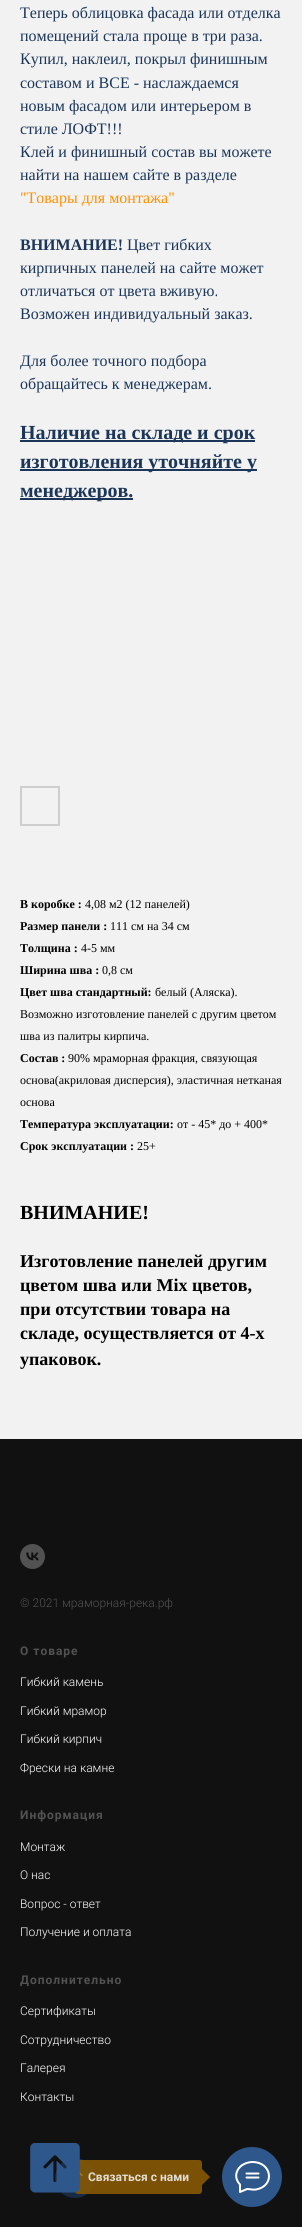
#include <cairo.h>
#include <math.h>
#include <stddef.h>

static cairo_t *ctx;

static void use_color(int r, int g, int b) {
    cairo_set_source_rgb(ctx, r / 255.0, g / 255.0, b / 255.0);
}

static void spaced_text(double x, double y, const char *s, double letter, double word) {
    cairo_move_to(ctx, x, y);
    while (*s) {
        char ch[5] = {0};
        int n = 0;
        do ch[n++] = *s++; while ((*s & 0xC0) == 0x80);
        cairo_show_text(ctx, ch);
        cairo_rel_move_to(ctx, letter + word * (*ch == ' '), 0);
    }
}

static void round_rect(double x, double y, double w, double h, double r) {
    cairo_new_sub_path(ctx);
    cairo_arc(ctx, x + w - r, y + h - r, r, 0, M_PI / 2);
    cairo_arc(ctx, x + r, y + h - r, r, M_PI / 2, M_PI);
    cairo_arc(ctx, x + r, y + r, r, M_PI, 1.5 * M_PI);
    cairo_arc(ctx, x + w - r, y + r, r, 1.5 * M_PI, 2 * M_PI);
    cairo_close_path(ctx);
}

static void picture(const char *path, double x, double y, double w, double h) {
    cairo_surface_t *image = cairo_image_surface_create_from_png(path);
    cairo_save(ctx);
    cairo_set_source_surface(ctx, image, x, y);
    cairo_rectangle(ctx, x, y, w, h);
    cairo_fill(ctx);
    cairo_restore(ctx);
    cairo_surface_destroy(image);
}

int main(void) {
    cairo_surface_t *surface = cairo_image_surface_create(CAIRO_FORMAT_RGB24, 302, 2227);
    ctx = cairo_create(surface);
    cairo_font_options_t *options = cairo_font_options_create();
    cairo_font_options_set_hint_metrics(options, CAIRO_HINT_METRICS_OFF);
    cairo_font_options_set_hint_style(options, CAIRO_HINT_STYLE_NONE);
    cairo_set_font_options(ctx, options);
    cairo_set_miter_limit(ctx, 4);
    use_color(242, 242, 242);
    cairo_paint(ctx);
    cairo_select_font_face(ctx, "Liberation Serif", CAIRO_FONT_SLANT_NORMAL, CAIRO_FONT_WEIGHT_NORMAL);
    cairo_set_font_size(ctx, 16);
    use_color(27, 54, 89);
    cairo_move_to(ctx, 20, 18);
    cairo_show_text(ctx, "Теперь облицовка фасада или отделка");
    cairo_move_to(ctx, 20, 41);
    cairo_show_text(ctx, "помещений стала проще в три раза.");
    cairo_move_to(ctx, 20, 64);
    cairo_show_text(ctx, "Купил, наклеил, покрыл финишным");
    cairo_move_to(ctx, 20, 88);
    cairo_show_text(ctx, "составом и ВСЕ - наслаждаемся");
    cairo_move_to(ctx, 20, 111);
    cairo_show_text(ctx, "новым фасадом или интерьером в");
    cairo_move_to(ctx, 20, 134);
    cairo_show_text(ctx, "стиле ЛОФТ!!!");
    cairo_move_to(ctx, 20, 157);
    cairo_show_text(ctx, "Клей и финишный состав вы можете");
    cairo_move_to(ctx, 20, 180);
    cairo_show_text(ctx, "найти на нашем сайте в разделе");
    use_color(255, 145, 0);
    cairo_move_to(ctx, 20, 203);
    cairo_show_text(ctx, "\"Товары для монтажа\"");
    cairo_select_font_face(ctx, "Liberation Serif", CAIRO_FONT_SLANT_NORMAL, CAIRO_FONT_WEIGHT_BOLD);
    use_color(27, 54, 89);
    cairo_move_to(ctx, 20, 250);
    cairo_show_text(ctx, "ВНИМАНИЕ!");
    cairo_select_font_face(ctx, "Liberation Serif", CAIRO_FONT_SLANT_NORMAL, CAIRO_FONT_WEIGHT_NORMAL);
    cairo_move_to(ctx, 127, 250);
    cairo_show_text(ctx, "Цвет гибких");
    cairo_move_to(ctx, 20, 273);
    cairo_show_text(ctx, "кирпичных панелей на сайте может");
    cairo_move_to(ctx, 20, 296);
    cairo_show_text(ctx, "отличаться от цвета вживую.");
    cairo_move_to(ctx, 20, 319);
    cairo_show_text(ctx, "Возможен индивидуальный заказ.");
    cairo_move_to(ctx, 20, 366);
    cairo_show_text(ctx, "Для более точного подбора");
    cairo_move_to(ctx, 20, 389);
    cairo_show_text(ctx, "обращайтесь к менеджерам.");
    cairo_rectangle(ctx, 20, 440, 235, 2);
    cairo_fill(ctx);
    cairo_select_font_face(ctx, "Liberation Serif", CAIRO_FONT_SLANT_NORMAL, CAIRO_FONT_WEIGHT_BOLD);
    cairo_set_font_size(ctx, 20);
    cairo_move_to(ctx, 20, 439);
    cairo_show_text(ctx, "Наличие на складе и срок");
    cairo_rectangle(ctx, 20, 469, 237, 2);
    cairo_fill(ctx);
    cairo_move_to(ctx, 20, 468);
    cairo_show_text(ctx, "изготовления уточняйте у");
    cairo_rectangle(ctx, 20, 498, 113, 2);
    cairo_fill(ctx);
    cairo_move_to(ctx, 20, 497);
    cairo_show_text(ctx, "менеджеров.");
    cairo_rectangle(ctx, 21, 787, 38, 38);
    use_color(206, 206, 206);
    cairo_stroke(ctx);
    cairo_set_font_size(ctx, 12);
    use_color(0, 0, 0);
    cairo_move_to(ctx, 20, 908);
    cairo_show_text(ctx, "В коробке :");
    cairo_select_font_face(ctx, "Liberation Serif", CAIRO_FONT_SLANT_NORMAL, CAIRO_FONT_WEIGHT_NORMAL);
    cairo_move_to(ctx, 85, 908);
    cairo_show_text(ctx, "4,08 м2 (12 панелей)");
    cairo_select_font_face(ctx, "Liberation Serif", CAIRO_FONT_SLANT_NORMAL, CAIRO_FONT_WEIGHT_BOLD);
    cairo_move_to(ctx, 20, 930);
    cairo_show_text(ctx, "Размер панели :");
    cairo_select_font_face(ctx, "Liberation Serif", CAIRO_FONT_SLANT_NORMAL, CAIRO_FONT_WEIGHT_NORMAL);
    cairo_move_to(ctx, 110, 930);
    cairo_show_text(ctx, "111 см на 34 см");
    cairo_select_font_face(ctx, "Liberation Serif", CAIRO_FONT_SLANT_NORMAL, CAIRO_FONT_WEIGHT_BOLD);
    cairo_move_to(ctx, 20, 952);
    cairo_show_text(ctx, "Толщина :");
    cairo_select_font_face(ctx, "Liberation Serif", CAIRO_FONT_SLANT_NORMAL, CAIRO_FONT_WEIGHT_NORMAL);
    cairo_move_to(ctx, 81, 952);
    cairo_show_text(ctx, "4-5 мм");
    cairo_select_font_face(ctx, "Liberation Serif", CAIRO_FONT_SLANT_NORMAL, CAIRO_FONT_WEIGHT_BOLD);
    cairo_move_to(ctx, 20, 974);
    cairo_show_text(ctx, "Ширина шва :");
    cairo_select_font_face(ctx, "Liberation Serif", CAIRO_FONT_SLANT_NORMAL, CAIRO_FONT_WEIGHT_NORMAL);
    cairo_move_to(ctx, 102, 974);
    cairo_show_text(ctx, "0,8 см");
    cairo_select_font_face(ctx, "Liberation Serif", CAIRO_FONT_SLANT_NORMAL, CAIRO_FONT_WEIGHT_BOLD);
    cairo_move_to(ctx, 20, 996);
    cairo_show_text(ctx, "Цвет шва стандартный:");
    cairo_select_font_face(ctx, "Liberation Serif", CAIRO_FONT_SLANT_NORMAL, CAIRO_FONT_WEIGHT_NORMAL);
    cairo_move_to(ctx, 155, 996);
    cairo_show_text(ctx, "белый (Аляска).");
    cairo_move_to(ctx, 20, 1018);
    cairo_show_text(ctx, "Возможно изготовление панелей с другим цветом");
    cairo_move_to(ctx, 20, 1040);
    cairo_show_text(ctx, "шва из палитры кирпича.");
    cairo_select_font_face(ctx, "Liberation Serif", CAIRO_FONT_SLANT_NORMAL, CAIRO_FONT_WEIGHT_BOLD);
    cairo_move_to(ctx, 20, 1062);
    cairo_show_text(ctx, "Состав :");
    cairo_select_font_face(ctx, "Liberation Serif", CAIRO_FONT_SLANT_NORMAL, CAIRO_FONT_WEIGHT_NORMAL);
    cairo_move_to(ctx, 68, 1062);
    cairo_show_text(ctx, "90% мраморная фракция, связующая");
    cairo_move_to(ctx, 20, 1084);
    cairo_show_text(ctx, "основа(акриловая дисперсия), эластичная нетканая");
    cairo_move_to(ctx, 20, 1106);
    cairo_show_text(ctx, "основа");
    cairo_select_font_face(ctx, "Liberation Serif", CAIRO_FONT_SLANT_NORMAL, CAIRO_FONT_WEIGHT_BOLD);
    cairo_move_to(ctx, 20, 1128);
    cairo_show_text(ctx, "Температура эксплуатации:");
    cairo_select_font_face(ctx, "Liberation Serif", CAIRO_FONT_SLANT_NORMAL, CAIRO_FONT_WEIGHT_NORMAL);
    cairo_move_to(ctx, 177, 1128);
    cairo_show_text(ctx, "от - 45* до + 400*");
    cairo_select_font_face(ctx, "Liberation Serif", CAIRO_FONT_SLANT_NORMAL, CAIRO_FONT_WEIGHT_BOLD);
    cairo_move_to(ctx, 20, 1150);
    cairo_show_text(ctx, "Срок эксплуатации :");
    cairo_select_font_face(ctx, "Liberation Serif", CAIRO_FONT_SLANT_NORMAL, CAIRO_FONT_WEIGHT_NORMAL);
    cairo_move_to(ctx, 137, 1150);
    cairo_show_text(ctx, "25+");
    cairo_select_font_face(ctx, "Liberation Serif", CAIRO_FONT_SLANT_NORMAL, CAIRO_FONT_WEIGHT_BOLD);
    cairo_set_font_size(ctx, 20);
    cairo_move_to(ctx, 20, 1219);
    cairo_show_text(ctx, "ВНИМАНИЕ!");
    cairo_set_font_size(ctx, 18);
    cairo_move_to(ctx, 20, 1267);
    cairo_show_text(ctx, "Изготовление панелей другим");
    cairo_move_to(ctx, 20, 1291);
    cairo_show_text(ctx, "цветом шва или Mix цветов,");
    cairo_move_to(ctx, 20, 1315);
    cairo_show_text(ctx, "при отсутствии товара на");
    cairo_move_to(ctx, 20, 1339);
    cairo_show_text(ctx, "складе, осуществляется от 4-х");
    cairo_move_to(ctx, 20, 1365);
    cairo_show_text(ctx, "упаковок.");
    use_color(17, 17, 17);
    cairo_rectangle(ctx, 0, 1439, 302, 788);
    cairo_fill(ctx);
    picture("img1.png", 20, 1544, 25, 25);
    cairo_select_font_face(ctx, "Roboto Light", CAIRO_FONT_SLANT_NORMAL, CAIRO_FONT_WEIGHT_NORMAL);
    cairo_set_font_size(ctx, 12);
    use_color(82, 82, 82);
    cairo_move_to(ctx, 20, 1607);
    cairo_show_text(ctx, "© 2021 мраморная-река.рф");
    cairo_select_font_face(ctx, "Roboto", CAIRO_FONT_SLANT_NORMAL, CAIRO_FONT_WEIGHT_BOLD);
    spaced_text(20, 1655, "О товаре", 1, 0);
    cairo_select_font_face(ctx, "Roboto Light", CAIRO_FONT_SLANT_NORMAL, CAIRO_FONT_WEIGHT_NORMAL);
    use_color(255, 255, 255);
    cairo_move_to(ctx, 20, 1686);
    cairo_show_text(ctx, "Гибкий камень");
    cairo_move_to(ctx, 20, 1715);
    cairo_show_text(ctx, "Гибкий мрамор");
    cairo_move_to(ctx, 20, 1743);
    cairo_show_text(ctx, "Гибкий кирпич");
    cairo_move_to(ctx, 20, 1772);
    cairo_show_text(ctx, "Фрески на камне");
    cairo_select_font_face(ctx, "Roboto", CAIRO_FONT_SLANT_NORMAL, CAIRO_FONT_WEIGHT_BOLD);
    use_color(82, 82, 82);
    spaced_text(20, 1819, "Информация", 1, 0);
    cairo_select_font_face(ctx, "Roboto Light", CAIRO_FONT_SLANT_NORMAL, CAIRO_FONT_WEIGHT_NORMAL);
    use_color(255, 255, 255);
    cairo_move_to(ctx, 20, 1851);
    cairo_show_text(ctx, "Монтаж");
    cairo_move_to(ctx, 20, 1879);
    cairo_show_text(ctx, "О нас");
    cairo_move_to(ctx, 20, 1908);
    cairo_show_text(ctx, "Вопрос - ответ");
    cairo_move_to(ctx, 20, 1936);
    cairo_show_text(ctx, "Получение и оплата");
    cairo_select_font_face(ctx, "Roboto", CAIRO_FONT_SLANT_NORMAL, CAIRO_FONT_WEIGHT_BOLD);
    use_color(82, 82, 82);
    spaced_text(20, 1984, "Дополнительно", 1, 0);
    cairo_select_font_face(ctx, "Roboto Light", CAIRO_FONT_SLANT_NORMAL, CAIRO_FONT_WEIGHT_NORMAL);
    use_color(255, 255, 255);
    cairo_move_to(ctx, 20, 2015);
    cairo_show_text(ctx, "Сертификаты");
    cairo_move_to(ctx, 20, 2044);
    cairo_show_text(ctx, "Сотрудничество");
    cairo_move_to(ctx, 20, 2072);
    cairo_show_text(ctx, "Галерея");
    cairo_move_to(ctx, 20, 2101);
    cairo_show_text(ctx, "Контакты");
    use_color(24, 43, 67);
    cairo_new_path(ctx);
    cairo_arc(ctx, 75, 2178, 20, 0, 2 * M_PI);
    cairo_fill(ctx);
    cairo_new_path(ctx);
    cairo_move_to(ctx, 68, 2175.5);
    cairo_line_to(ctx, 75, 2168.5);
    cairo_line_to(ctx, 82, 2175.5);
    use_color(242, 242, 242);
    cairo_set_line_width(ctx, 1.6);
    cairo_set_line_cap(ctx, CAIRO_LINE_CAP_ROUND);
    cairo_set_line_join(ctx, CAIRO_LINE_JOIN_ROUND);
    cairo_stroke(ctx);
    cairo_set_source_rgba(ctx, 0.549, 0.361, 0.012, 0.85);
    round_rect(75, 2160, 127, 34, 3);
    cairo_fill(ctx);
    picture("img2.png", 30, 2143, 50, 50);
    cairo_select_font_face(ctx, "Roboto", CAIRO_FONT_SLANT_NORMAL, CAIRO_FONT_WEIGHT_BOLD);
    use_color(226, 220, 209);
    cairo_move_to(ctx, 88, 2181);
    cairo_show_text(ctx, "Связаться с нами");
    use_color(122, 81, 5);
    cairo_new_path(ctx);
    cairo_move_to(ctx, 202, 2185);
    cairo_line_to(ctx, 202, 2169);
    cairo_line_to(ctx, 210, 2177);
    cairo_close_path(ctx);
    cairo_fill(ctx);
    use_color(46, 87, 140);
    cairo_arc(ctx, 252, 2177, 30, 0, 2 * M_PI);
    cairo_fill(ctx);
    cairo_new_path(ctx);
    cairo_move_to(ctx, 246.5, 2173.5);
    cairo_line_to(ctx, 258.5, 2173.5);
    cairo_move_to(ctx, 246.5, 2177.5);
    cairo_line_to(ctx, 258.5, 2177.5);
    cairo_move_to(ctx, 240, 2184.5);
    cairo_curve_to(ctx, 234.5, 2179, 235, 2171, 241, 2166);
    cairo_curve_to(ctx, 244, 2163.5, 248.5, 2162, 252.5, 2162);
    cairo_curve_to(ctx, 272, 2162, 275.5, 2186, 256, 2189.5);
    cairo_curve_to(ctx, 252, 2190, 250.5, 2189, 247, 2189);
    cairo_line_to(ctx, 240, 2192);
    cairo_line_to(ctx, 240, 2185);
    cairo_close_path(ctx);
    use_color(255, 255, 255);
    cairo_set_line_width(ctx, 2);
    cairo_stroke(ctx);
    cairo_surface_write_to_png(surface, "result.png");
    cairo_font_options_destroy(options);
    cairo_destroy(ctx);
    cairo_surface_destroy(surface);
    return 0;
}
